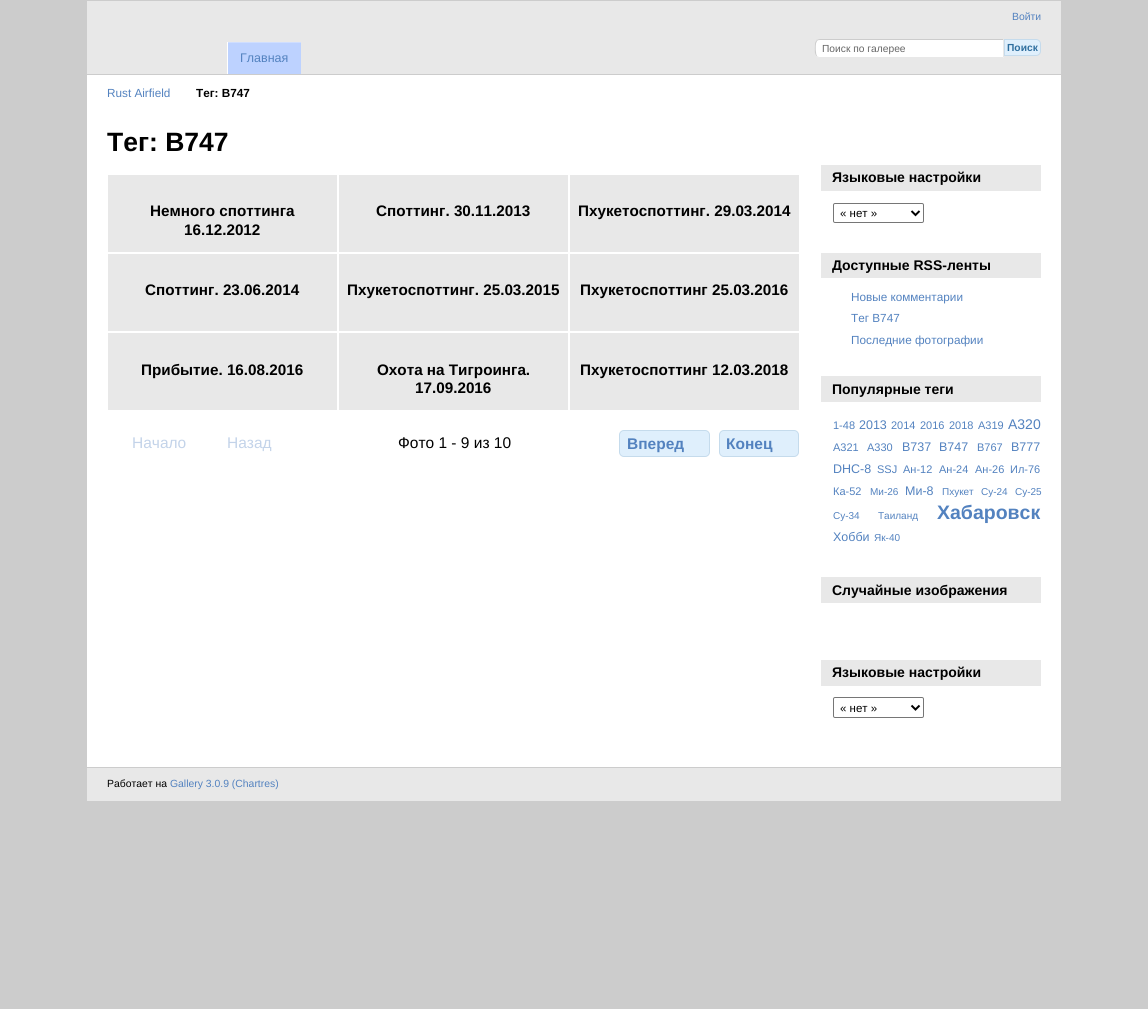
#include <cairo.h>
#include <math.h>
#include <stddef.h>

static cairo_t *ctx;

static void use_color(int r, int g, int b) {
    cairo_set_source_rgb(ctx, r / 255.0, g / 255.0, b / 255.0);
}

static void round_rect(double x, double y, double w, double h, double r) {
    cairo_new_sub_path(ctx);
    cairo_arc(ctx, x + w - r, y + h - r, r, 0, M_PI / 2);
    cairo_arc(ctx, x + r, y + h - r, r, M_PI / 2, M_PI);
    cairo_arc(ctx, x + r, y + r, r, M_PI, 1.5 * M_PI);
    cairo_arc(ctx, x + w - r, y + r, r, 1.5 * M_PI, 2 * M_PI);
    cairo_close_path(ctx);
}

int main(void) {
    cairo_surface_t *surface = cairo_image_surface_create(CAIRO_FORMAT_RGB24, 1148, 1009);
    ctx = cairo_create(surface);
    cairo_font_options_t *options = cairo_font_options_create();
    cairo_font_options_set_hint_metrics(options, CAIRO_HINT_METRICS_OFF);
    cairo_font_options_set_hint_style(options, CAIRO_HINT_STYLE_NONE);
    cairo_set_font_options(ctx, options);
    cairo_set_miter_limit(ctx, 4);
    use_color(204, 204, 204);
    cairo_paint(ctx);
    use_color(255, 255, 255);
    cairo_rectangle(ctx, 87, 75, 974, 692);
    cairo_fill(ctx);
    use_color(232, 232, 232);
    cairo_rectangle(ctx, 87, 1, 974, 73);
    cairo_fill(ctx);
    cairo_select_font_face(ctx, "Liberation Sans", CAIRO_FONT_SLANT_NORMAL, CAIRO_FONT_WEIGHT_NORMAL);
    cairo_set_font_size(ctx, 10.4);
    use_color(83, 130, 191);
    cairo_move_to(ctx, 1012, 20);
    cairo_show_text(ctx, "Войти");
    use_color(255, 255, 255);
    cairo_new_path(ctx);
    cairo_move_to(ctx, 820, 39);
    cairo_line_to(ctx, 1004, 39);
    cairo_line_to(ctx, 1004, 58);
    cairo_line_to(ctx, 820, 58);
    cairo_curve_to(ctx, 817, 58, 815, 56, 815, 53);
    cairo_line_to(ctx, 815, 44);
    cairo_curve_to(ctx, 815, 41, 817, 39, 820, 39);
    cairo_close_path(ctx);
    cairo_fill(ctx);
    use_color(204, 204, 204);
    cairo_new_path(ctx);
    cairo_move_to(ctx, 820, 39);
    cairo_curve_to(ctx, 818, 39, 817, 40, 816, 40);
    cairo_line_to(ctx, 817, 41);
    cairo_curve_to(ctx, 818, 40, 819, 40, 820, 40);
    cairo_line_to(ctx, 1003, 40);
    cairo_line_to(ctx, 1004, 39);
    cairo_close_path(ctx);
    cairo_fill(ctx);
    use_color(232, 232, 232);
    cairo_new_path(ctx);
    cairo_move_to(ctx, 1004, 39);
    cairo_line_to(ctx, 1003, 40);
    cairo_line_to(ctx, 1003, 57);
    cairo_line_to(ctx, 1004, 58);
    cairo_close_path(ctx);
    cairo_fill(ctx);
    cairo_new_path(ctx);
    cairo_move_to(ctx, 1004, 58);
    cairo_line_to(ctx, 1003, 57);
    cairo_line_to(ctx, 819, 57);
    cairo_line_to(ctx, 817, 56);
    cairo_line_to(ctx, 816, 57);
    cairo_curve_to(ctx, 817, 58, 818, 58, 820, 58);
    cairo_close_path(ctx);
    cairo_fill(ctx);
    use_color(204, 204, 204);
    cairo_new_path(ctx);
    cairo_move_to(ctx, 815, 44);
    cairo_curve_to(ctx, 815, 47, 814, 54.5, 816.5, 56.5);
    cairo_line_to(ctx, 817, 56);
    cairo_curve_to(ctx, 815.5, 53.5, 815.5, 46, 816, 43.5);
    cairo_line_to(ctx, 817, 41);
    cairo_line_to(ctx, 816.5, 40.5);
    cairo_curve_to(ctx, 815.5, 41, 815, 42.5, 815, 44);
    cairo_close_path(ctx);
    cairo_fill(ctx);
    cairo_set_font_size(ctx, 10.25);
    use_color(102, 102, 102);
    cairo_move_to(ctx, 822, 52);
    cairo_show_text(ctx, "Поиск по галерее");
    use_color(223, 239, 252);
    cairo_new_path(ctx);
    cairo_move_to(ctx, 1004.5, 39.5);
    cairo_line_to(ctx, 1036, 39.5);
    cairo_curve_to(ctx, 1038.5, 39.5, 1040.5, 41.5, 1040.5, 44);
    cairo_line_to(ctx, 1040.5, 51);
    cairo_curve_to(ctx, 1040.5, 53.5, 1038.5, 55.5, 1036, 55.5);
    cairo_line_to(ctx, 1004.5, 55.5);
    cairo_close_path(ctx);
    cairo_fill_preserve(ctx);
    use_color(197, 219, 236);
    cairo_set_line_width(ctx, 1);
    cairo_stroke(ctx);
    cairo_select_font_face(ctx, "Liberation Sans", CAIRO_FONT_SLANT_NORMAL, CAIRO_FONT_WEIGHT_BOLD);
    use_color(46, 110, 158);
    cairo_move_to(ctx, 1007, 51);
    cairo_show_text(ctx, "Поиск");
    use_color(189, 210, 255);
    cairo_rectangle(ctx, 228, 43, 73, 31);
    cairo_fill(ctx);
    use_color(207, 222, 255);
    cairo_rectangle(ctx, 227, 42, 74, 1);
    cairo_fill(ctx);
    use_color(255, 255, 255);
    cairo_rectangle(ctx, 227, 42, 1, 32);
    cairo_fill(ctx);
    cairo_select_font_face(ctx, "Liberation Sans", CAIRO_FONT_SLANT_NORMAL, CAIRO_FONT_WEIGHT_NORMAL);
    cairo_set_font_size(ctx, 12.5);
    use_color(83, 130, 191);
    cairo_move_to(ctx, 240, 62);
    cairo_show_text(ctx, "Главная");
    cairo_set_font_size(ctx, 11.75);
    cairo_move_to(ctx, 107, 97);
    cairo_show_text(ctx, "Rust Airfield");
    cairo_select_font_face(ctx, "Liberation Sans", CAIRO_FONT_SLANT_NORMAL, CAIRO_FONT_WEIGHT_BOLD);
    use_color(0, 0, 0);
    cairo_move_to(ctx, 196, 97);
    cairo_show_text(ctx, "Тег: B747");
    cairo_set_font_size(ctx, 26.5);
    cairo_move_to(ctx, 107, 151);
    cairo_show_text(ctx, "Тег: B747");
    use_color(232, 232, 232);
    cairo_rectangle(ctx, 108, 175, 229, 77);
    cairo_fill(ctx);
    cairo_set_font_size(ctx, 15.25);
    use_color(0, 0, 0);
    cairo_move_to(ctx, 150, 216);
    cairo_show_text(ctx, "Немного споттинга");
    cairo_move_to(ctx, 184, 235);
    cairo_show_text(ctx, "16.12.2012");
    use_color(232, 232, 232);
    cairo_rectangle(ctx, 339, 175, 229, 77);
    cairo_fill(ctx);
    use_color(0, 0, 0);
    cairo_move_to(ctx, 376, 216);
    cairo_show_text(ctx, "Споттинг. 30.11.2013");
    use_color(232, 232, 232);
    cairo_rectangle(ctx, 570, 175, 229, 77);
    cairo_fill(ctx);
    use_color(0, 0, 0);
    cairo_move_to(ctx, 578, 216);
    cairo_show_text(ctx, "Пхукетоспоттинг. 29.03.2014");
    use_color(232, 232, 232);
    cairo_rectangle(ctx, 108, 254, 229, 77);
    cairo_fill(ctx);
    use_color(0, 0, 0);
    cairo_move_to(ctx, 145, 295);
    cairo_show_text(ctx, "Споттинг. 23.06.2014");
    use_color(232, 232, 232);
    cairo_rectangle(ctx, 339, 254, 229, 77);
    cairo_fill(ctx);
    use_color(0, 0, 0);
    cairo_move_to(ctx, 347, 295);
    cairo_show_text(ctx, "Пхукетоспоттинг. 25.03.2015");
    use_color(232, 232, 232);
    cairo_rectangle(ctx, 570, 254, 229, 77);
    cairo_fill(ctx);
    use_color(0, 0, 0);
    cairo_move_to(ctx, 580, 295);
    cairo_show_text(ctx, "Пхукетоспоттинг 25.03.2016");
    use_color(232, 232, 232);
    cairo_rectangle(ctx, 108, 333, 229, 77);
    cairo_fill(ctx);
    use_color(0, 0, 0);
    cairo_move_to(ctx, 141, 375);
    cairo_show_text(ctx, "Прибытие. 16.08.2016");
    use_color(232, 232, 232);
    cairo_rectangle(ctx, 339, 333, 229, 77);
    cairo_fill(ctx);
    use_color(0, 0, 0);
    cairo_move_to(ctx, 377, 375);
    cairo_show_text(ctx, "Охота на Тигроинга.");
    cairo_move_to(ctx, 415, 393);
    cairo_show_text(ctx, "17.09.2016");
    use_color(232, 232, 232);
    cairo_rectangle(ctx, 570, 333, 229, 77);
    cairo_fill(ctx);
    use_color(0, 0, 0);
    cairo_move_to(ctx, 580, 375);
    cairo_show_text(ctx, "Пхукетоспоттинг 12.03.2018");
    cairo_select_font_face(ctx, "Liberation Sans", CAIRO_FONT_SLANT_NORMAL, CAIRO_FONT_WEIGHT_NORMAL);
    cairo_set_font_size(ctx, 15.5);
    use_color(195, 211, 233);
    cairo_move_to(ctx, 132, 448);
    cairo_show_text(ctx, "Начало");
    cairo_move_to(ctx, 227, 448);
    cairo_show_text(ctx, "Назад");
    use_color(0, 0, 0);
    cairo_move_to(ctx, 398, 448);
    cairo_show_text(ctx, "Фото 1 - 9 из 10");
    use_color(223, 239, 252);
    round_rect(619.5, 430.5, 90, 26, 4.5);
    cairo_fill_preserve(ctx);
    use_color(197, 219, 236);
    cairo_stroke(ctx);
    cairo_select_font_face(ctx, "Liberation Sans", CAIRO_FONT_SLANT_NORMAL, CAIRO_FONT_WEIGHT_BOLD);
    use_color(83, 130, 191);
    cairo_move_to(ctx, 627, 449);
    cairo_show_text(ctx, "Вперед");
    use_color(223, 239, 252);
    round_rect(719.5, 430.5, 79, 26, 4.5);
    cairo_fill_preserve(ctx);
    use_color(197, 219, 236);
    cairo_stroke(ctx);
    use_color(83, 130, 191);
    cairo_move_to(ctx, 726, 449);
    cairo_show_text(ctx, "Конец");
    use_color(232, 232, 232);
    cairo_rectangle(ctx, 821, 165, 220, 26);
    cairo_fill(ctx);
    cairo_set_font_size(ctx, 14);
    use_color(0, 0, 0);
    cairo_move_to(ctx, 832, 182);
    cairo_show_text(ctx, "Языковые настройки");
    round_rect(833.5, 203.5, 90, 19, 1.5);
    use_color(118, 118, 118);
    cairo_stroke(ctx);
    cairo_new_path(ctx);
    cairo_move_to(ctx, 911.5, 211);
    cairo_line_to(ctx, 915.5, 215);
    cairo_line_to(ctx, 919.5, 211);
    use_color(0, 0, 0);
    cairo_set_line_width(ctx, 2);
    cairo_stroke(ctx);
    cairo_select_font_face(ctx, "Liberation Sans", CAIRO_FONT_SLANT_NORMAL, CAIRO_FONT_WEIGHT_NORMAL);
    cairo_set_font_size(ctx, 11.5);
    cairo_move_to(ctx, 840, 217);
    cairo_show_text(ctx, "« нет »");
    use_color(232, 232, 232);
    cairo_rectangle(ctx, 821, 253, 220, 25);
    cairo_fill(ctx);
    cairo_select_font_face(ctx, "Liberation Sans", CAIRO_FONT_SLANT_NORMAL, CAIRO_FONT_WEIGHT_BOLD);
    cairo_set_font_size(ctx, 14);
    use_color(0, 0, 0);
    cairo_move_to(ctx, 832, 270);
    cairo_show_text(ctx, "Доступные RSS-ленты");
    cairo_select_font_face(ctx, "Liberation Sans", CAIRO_FONT_SLANT_NORMAL, CAIRO_FONT_WEIGHT_NORMAL);
    cairo_set_font_size(ctx, 11.75);
    use_color(83, 130, 191);
    cairo_move_to(ctx, 851, 301);
    cairo_show_text(ctx, "Новые комментарии");
    cairo_move_to(ctx, 851, 322);
    cairo_show_text(ctx, "Тег B747");
    cairo_move_to(ctx, 851, 344);
    cairo_show_text(ctx, "Последние фотографии");
    use_color(232, 232, 232);
    cairo_rectangle(ctx, 821, 376, 220, 26);
    cairo_fill(ctx);
    cairo_select_font_face(ctx, "Liberation Sans", CAIRO_FONT_SLANT_NORMAL, CAIRO_FONT_WEIGHT_BOLD);
    cairo_set_font_size(ctx, 14);
    use_color(0, 0, 0);
    cairo_move_to(ctx, 832, 394);
    cairo_show_text(ctx, "Популярные теги");
    cairo_select_font_face(ctx, "Liberation Sans", CAIRO_FONT_SLANT_NORMAL, CAIRO_FONT_WEIGHT_NORMAL);
    cairo_set_font_size(ctx, 11);
    use_color(83, 130, 191);
    cairo_move_to(ctx, 833, 429);
    cairo_show_text(ctx, "1-48");
    cairo_set_font_size(ctx, 12.5);
    cairo_move_to(ctx, 859, 429);
    cairo_show_text(ctx, "2013");
    cairo_set_font_size(ctx, 11);
    cairo_move_to(ctx, 891, 429);
    cairo_show_text(ctx, "2014");
    cairo_move_to(ctx, 920, 429);
    cairo_show_text(ctx, "2016");
    cairo_move_to(ctx, 949, 429);
    cairo_show_text(ctx, "2018");
    cairo_move_to(ctx, 978, 429);
    cairo_show_text(ctx, "A319");
    cairo_set_font_size(ctx, 14);
    cairo_move_to(ctx, 1008, 429);
    cairo_show_text(ctx, "A320");
    cairo_set_font_size(ctx, 11);
    cairo_move_to(ctx, 833, 451);
    cairo_show_text(ctx, "A321");
    cairo_move_to(ctx, 867, 451);
    cairo_show_text(ctx, "A330");
    cairo_set_font_size(ctx, 12.5);
    cairo_move_to(ctx, 902, 451);
    cairo_show_text(ctx, "B737");
    cairo_move_to(ctx, 939, 451);
    cairo_show_text(ctx, "B747");
    cairo_set_font_size(ctx, 11);
    cairo_move_to(ctx, 977, 451);
    cairo_show_text(ctx, "B767");
    cairo_set_font_size(ctx, 12.5);
    cairo_move_to(ctx, 1011, 451);
    cairo_show_text(ctx, "B777");
    cairo_move_to(ctx, 833, 473);
    cairo_show_text(ctx, "DHC-8");
    cairo_set_font_size(ctx, 11);
    cairo_move_to(ctx, 877, 473);
    cairo_show_text(ctx, "SSJ");
    cairo_move_to(ctx, 903, 473);
    cairo_show_text(ctx, "Ан-12");
    cairo_move_to(ctx, 939, 473);
    cairo_show_text(ctx, "Ан-24");
    cairo_move_to(ctx, 975, 473);
    cairo_show_text(ctx, "Ан-26");
    cairo_move_to(ctx, 1010, 473);
    cairo_show_text(ctx, "Ил-76");
    cairo_move_to(ctx, 833, 495);
    cairo_show_text(ctx, "Ка-52");
    cairo_set_font_size(ctx, 10);
    cairo_move_to(ctx, 870, 495);
    cairo_show_text(ctx, "Ми-26");
    cairo_set_font_size(ctx, 12.5);
    cairo_move_to(ctx, 905, 495);
    cairo_show_text(ctx, "Ми-8");
    cairo_set_font_size(ctx, 10);
    cairo_move_to(ctx, 942, 495);
    cairo_show_text(ctx, "Пхукет");
    cairo_move_to(ctx, 981, 495);
    cairo_show_text(ctx, "Су-24");
    cairo_move_to(ctx, 1015, 495);
    cairo_show_text(ctx, "Су-25");
    cairo_move_to(ctx, 833, 519);
    cairo_show_text(ctx, "Су-34");
    cairo_move_to(ctx, 878, 519);
    cairo_show_text(ctx, "Таиланд");
    cairo_select_font_face(ctx, "Liberation Sans", CAIRO_FONT_SLANT_NORMAL, CAIRO_FONT_WEIGHT_BOLD);
    cairo_set_font_size(ctx, 19.5);
    cairo_move_to(ctx, 937, 519);
    cairo_show_text(ctx, "Хабаровск");
    cairo_select_font_face(ctx, "Liberation Sans", CAIRO_FONT_SLANT_NORMAL, CAIRO_FONT_WEIGHT_NORMAL);
    cairo_set_font_size(ctx, 12.5);
    cairo_move_to(ctx, 833, 541);
    cairo_show_text(ctx, "Хобби");
    cairo_set_font_size(ctx, 10);
    cairo_move_to(ctx, 874, 541);
    cairo_show_text(ctx, "Як-40");
    use_color(232, 232, 232);
    cairo_rectangle(ctx, 821, 577, 220, 26);
    cairo_fill(ctx);
    cairo_select_font_face(ctx, "Liberation Sans", CAIRO_FONT_SLANT_NORMAL, CAIRO_FONT_WEIGHT_BOLD);
    cairo_set_font_size(ctx, 14);
    use_color(0, 0, 0);
    cairo_move_to(ctx, 832, 595);
    cairo_show_text(ctx, "Случайные изображения");
    use_color(232, 232, 232);
    cairo_rectangle(ctx, 821, 660, 220, 26);
    cairo_fill(ctx);
    use_color(0, 0, 0);
    cairo_move_to(ctx, 832, 677);
    cairo_show_text(ctx, "Языковые настройки");
    round_rect(833.5, 697.5, 90, 20, 1.5);
    use_color(118, 118, 118);
    cairo_set_line_width(ctx, 1);
    cairo_stroke(ctx);
    cairo_new_path(ctx);
    cairo_move_to(ctx, 911.5, 705.5);
    cairo_line_to(ctx, 915.5, 709.5);
    cairo_line_to(ctx, 919.5, 705.5);
    use_color(0, 0, 0);
    cairo_set_line_width(ctx, 2);
    cairo_stroke(ctx);
    cairo_select_font_face(ctx, "Liberation Sans", CAIRO_FONT_SLANT_NORMAL, CAIRO_FONT_WEIGHT_NORMAL);
    cairo_set_font_size(ctx, 11.5);
    cairo_move_to(ctx, 840, 712);
    cairo_show_text(ctx, "« нет »");
    use_color(232, 232, 232);
    cairo_rectangle(ctx, 87, 768, 974, 33);
    cairo_fill(ctx);
    cairo_set_font_size(ctx, 10.4);
    use_color(0, 0, 0);
    cairo_move_to(ctx, 107, 787);
    cairo_show_text(ctx, "Работает на");
    use_color(83, 130, 191);
    cairo_move_to(ctx, 170, 787);
    cairo_show_text(ctx, "Gallery 3.0.9 (Chartres)");
    cairo_surface_write_to_png(surface, "result.png");
    cairo_font_options_destroy(options);
    cairo_destroy(ctx);
    cairo_surface_destroy(surface);
    return 0;
}
